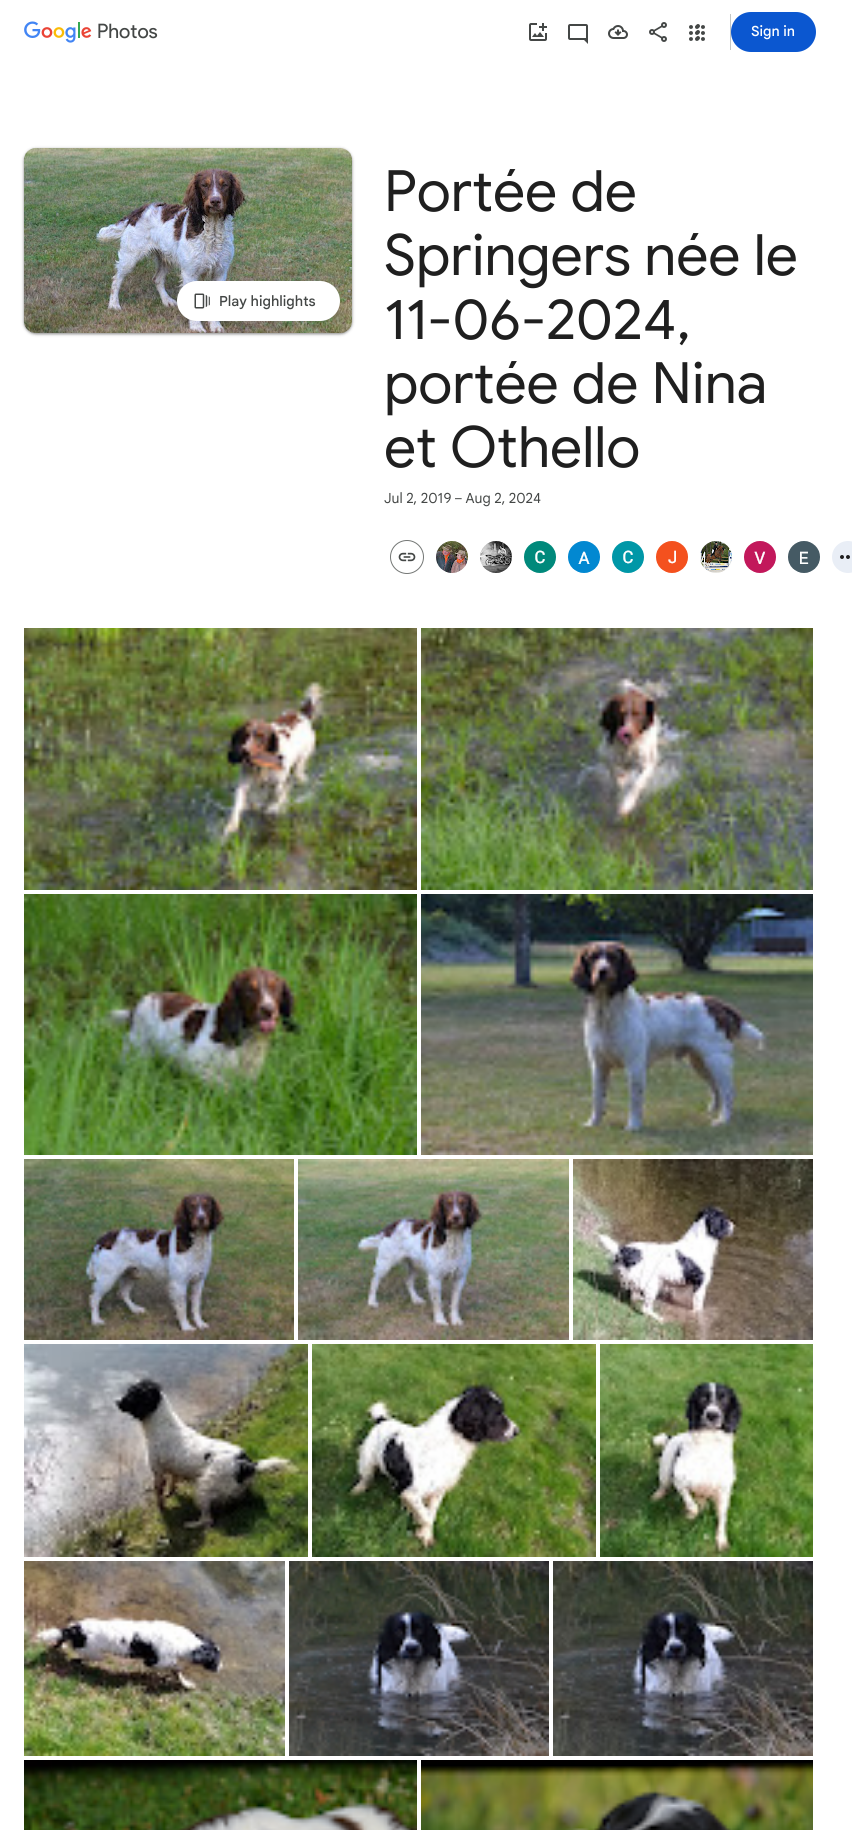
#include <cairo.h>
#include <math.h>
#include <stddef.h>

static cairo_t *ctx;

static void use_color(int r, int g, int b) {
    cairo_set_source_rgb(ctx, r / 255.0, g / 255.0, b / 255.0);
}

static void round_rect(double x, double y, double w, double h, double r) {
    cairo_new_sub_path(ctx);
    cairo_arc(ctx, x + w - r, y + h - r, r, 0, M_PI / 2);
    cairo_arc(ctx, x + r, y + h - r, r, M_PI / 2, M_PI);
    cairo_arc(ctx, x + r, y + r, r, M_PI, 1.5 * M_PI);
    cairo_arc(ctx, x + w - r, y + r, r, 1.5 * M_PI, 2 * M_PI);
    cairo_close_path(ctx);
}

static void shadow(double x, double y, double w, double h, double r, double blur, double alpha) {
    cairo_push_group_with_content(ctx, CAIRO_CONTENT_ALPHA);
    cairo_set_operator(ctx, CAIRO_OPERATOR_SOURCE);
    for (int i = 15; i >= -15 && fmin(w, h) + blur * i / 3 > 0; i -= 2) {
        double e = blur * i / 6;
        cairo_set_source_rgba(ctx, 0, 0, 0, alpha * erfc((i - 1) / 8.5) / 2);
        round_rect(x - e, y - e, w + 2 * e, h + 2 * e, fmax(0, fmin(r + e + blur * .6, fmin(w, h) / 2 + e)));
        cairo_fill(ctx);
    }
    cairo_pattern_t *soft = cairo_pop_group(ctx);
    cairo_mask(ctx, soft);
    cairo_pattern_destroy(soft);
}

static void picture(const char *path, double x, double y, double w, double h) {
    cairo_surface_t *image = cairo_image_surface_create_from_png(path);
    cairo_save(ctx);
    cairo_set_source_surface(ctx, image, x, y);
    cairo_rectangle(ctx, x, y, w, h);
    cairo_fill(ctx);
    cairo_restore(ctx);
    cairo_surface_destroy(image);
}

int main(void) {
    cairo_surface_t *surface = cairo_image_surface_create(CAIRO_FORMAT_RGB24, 852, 1830);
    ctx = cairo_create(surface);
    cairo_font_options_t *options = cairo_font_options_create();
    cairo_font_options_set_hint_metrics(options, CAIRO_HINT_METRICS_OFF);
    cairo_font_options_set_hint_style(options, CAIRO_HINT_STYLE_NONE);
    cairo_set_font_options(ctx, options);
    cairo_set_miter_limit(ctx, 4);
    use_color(255, 255, 255);
    cairo_paint(ctx);
    picture("img1.png", 24, 21, 68, 22);
    cairo_select_font_face(ctx, "Product Sans", CAIRO_FONT_SLANT_NORMAL, CAIRO_FONT_WEIGHT_NORMAL);
    cairo_set_font_size(ctx, 20);
    use_color(68, 71, 70);
    cairo_move_to(ctx, 97, 38);
    cairo_show_text(ctx, "Photos");
    picture("img2.png", 529, 23, 18, 18);
    picture("img3.png", 568, 24, 20, 20);
    picture("img4.png", 608, 25, 20, 14);
    picture("img5.png", 649, 22, 18, 20);
    picture("img6.png", 696, 24, 4, 16);
    use_color(196, 199, 197);
    cairo_rectangle(ctx, 730, 14, 1, 36);
    cairo_fill(ctx);
    use_color(0, 0, 0);
    shadow(23, 148, 330, 187, 13, 1.5, 0.15);
    shadow(24, 149, 328, 185, 12, 1, 0.3);
    picture("img7.png", 24, 148, 328, 185);
    use_color(255, 255, 255);
    round_rect(177, 281, 163, 40, 20);
    cairo_fill(ctx);
    picture("img8.png", 194, 293, 16, 16);
    cairo_select_font_face(ctx, "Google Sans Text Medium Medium", CAIRO_FONT_SLANT_NORMAL, CAIRO_FONT_WEIGHT_NORMAL);
    cairo_set_font_size(ctx, 14);
    use_color(68, 71, 70);
    cairo_move_to(ctx, 219, 306);
    cairo_show_text(ctx, "Play highlights");
    cairo_select_font_face(ctx, "Google Sans", CAIRO_FONT_SLANT_NORMAL, CAIRO_FONT_WEIGHT_NORMAL);
    cairo_set_font_size(ctx, 57);
    use_color(31, 31, 31);
    cairo_move_to(ctx, 384, 211);
    cairo_show_text(ctx, "Portée de");
    cairo_move_to(ctx, 384, 275);
    cairo_show_text(ctx, "Springers née le");
    cairo_move_to(ctx, 384, 339);
    cairo_show_text(ctx, "11-06-2024,");
    cairo_move_to(ctx, 384, 403);
    cairo_show_text(ctx, "portée de Nina");
    cairo_move_to(ctx, 384, 467);
    cairo_show_text(ctx, "et Othello");
    cairo_select_font_face(ctx, "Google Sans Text", CAIRO_FONT_SLANT_NORMAL, CAIRO_FONT_WEIGHT_NORMAL);
    cairo_set_font_size(ctx, 14);
    use_color(68, 71, 70);
    cairo_move_to(ctx, 384, 503);
    cairo_show_text(ctx, "Jul 2, 2019 – Aug 2, 2024");
    cairo_new_path(ctx);
    cairo_arc(ctx, 407, 557, 16.5, 0, 2 * M_PI);
    use_color(116, 119, 117);
    cairo_set_line_width(ctx, 1);
    cairo_stroke(ctx);
    picture("img9.png", 398, 552, 18, 10);
    picture("img10.png", 436, 541, 32, 32);
    picture("img11.png", 480, 541, 32, 32);
    picture("img12.png", 524, 541, 32, 32);
    picture("img13.png", 568, 541, 32, 32);
    picture("img14.png", 612, 541, 32, 32);
    picture("img15.png", 656, 541, 32, 32);
    picture("img16.png", 700, 541, 32, 32);
    picture("img17.png", 744, 541, 32, 32);
    picture("img18.png", 788, 541, 32, 32);
    use_color(233, 238, 246);
    cairo_arc(ctx, 848, 557, 16, 0, 2 * M_PI);
    cairo_fill(ctx);
    picture("img19.png", 840, 555, 10, 4);
    picture("img20.png", 24, 628, 393, 262);
    picture("img21.png", 421, 628, 392, 262);
    picture("img22.png", 24, 894, 393, 261);
    picture("img23.png", 421, 894, 392, 261);
    picture("img24.png", 24, 1159, 270, 181);
    picture("img25.png", 298, 1159, 271, 181);
    picture("img26.png", 573, 1159, 240, 181);
    picture("img27.png", 24, 1344, 284, 213);
    picture("img28.png", 312, 1344, 284, 213);
    picture("img29.png", 600, 1344, 213, 213);
    picture("img30.png", 24, 1561, 261, 195);
    picture("img31.png", 289, 1561, 260, 195);
    picture("img32.png", 553, 1561, 260, 195);
    picture("img33.png", 24, 1760, 393, 70);
    picture("img34.png", 421, 1760, 392, 70);
    picture("img35.png", 689, 25, 16, 16);
    use_color(11, 87, 208);
    round_rect(731, 12, 85, 40, 20);
    cairo_fill(ctx);
    cairo_select_font_face(ctx, "Google Sans Text Medium Medium", CAIRO_FONT_SLANT_NORMAL, CAIRO_FONT_WEIGHT_NORMAL);
    use_color(255, 255, 255);
    cairo_move_to(ctx, 751, 36);
    cairo_show_text(ctx, "Sign in");
    cairo_surface_write_to_png(surface, "result.png");
    cairo_font_options_destroy(options);
    cairo_destroy(ctx);
    cairo_surface_destroy(surface);
    return 0;
}
